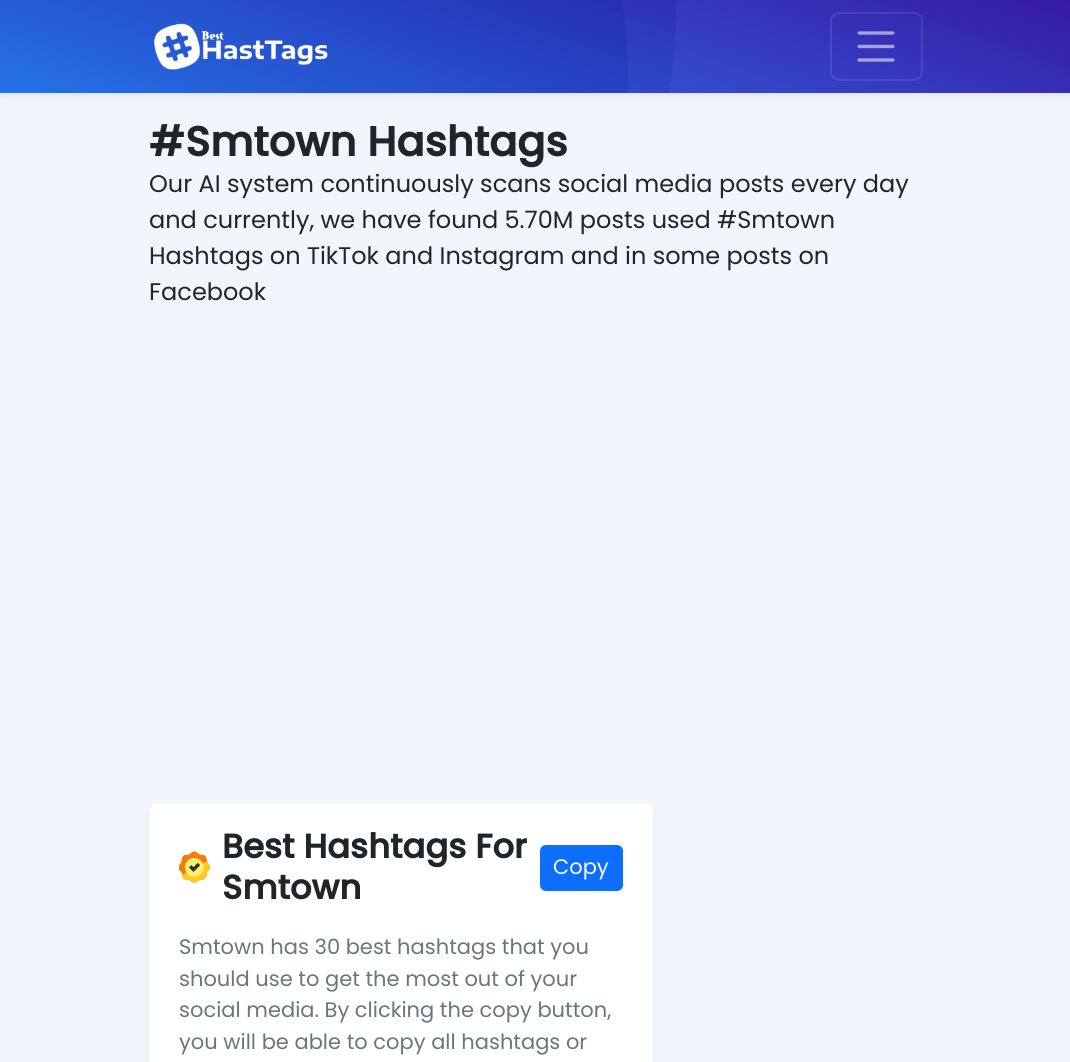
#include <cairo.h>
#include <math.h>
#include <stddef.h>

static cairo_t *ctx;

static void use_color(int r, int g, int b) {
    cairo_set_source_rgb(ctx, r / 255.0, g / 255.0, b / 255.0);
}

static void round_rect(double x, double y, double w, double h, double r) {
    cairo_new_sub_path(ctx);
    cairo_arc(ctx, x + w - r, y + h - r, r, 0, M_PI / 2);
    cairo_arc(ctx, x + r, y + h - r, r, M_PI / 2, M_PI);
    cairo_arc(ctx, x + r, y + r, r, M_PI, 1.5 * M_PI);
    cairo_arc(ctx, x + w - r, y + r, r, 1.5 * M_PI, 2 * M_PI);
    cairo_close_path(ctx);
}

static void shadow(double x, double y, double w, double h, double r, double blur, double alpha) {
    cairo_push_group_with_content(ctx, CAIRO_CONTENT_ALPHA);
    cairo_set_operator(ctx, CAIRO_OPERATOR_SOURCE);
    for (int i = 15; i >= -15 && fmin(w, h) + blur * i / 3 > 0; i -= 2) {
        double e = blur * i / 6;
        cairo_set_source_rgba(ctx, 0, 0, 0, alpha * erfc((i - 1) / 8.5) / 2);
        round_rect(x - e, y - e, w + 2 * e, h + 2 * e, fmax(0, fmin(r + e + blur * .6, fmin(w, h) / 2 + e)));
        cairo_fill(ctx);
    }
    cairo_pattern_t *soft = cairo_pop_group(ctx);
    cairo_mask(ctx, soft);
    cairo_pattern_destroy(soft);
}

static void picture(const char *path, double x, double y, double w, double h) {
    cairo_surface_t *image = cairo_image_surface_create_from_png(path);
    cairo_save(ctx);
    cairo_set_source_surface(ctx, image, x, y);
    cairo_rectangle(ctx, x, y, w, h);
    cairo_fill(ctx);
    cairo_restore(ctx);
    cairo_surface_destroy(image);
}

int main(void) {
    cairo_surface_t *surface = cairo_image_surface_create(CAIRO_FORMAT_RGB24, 1070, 1062);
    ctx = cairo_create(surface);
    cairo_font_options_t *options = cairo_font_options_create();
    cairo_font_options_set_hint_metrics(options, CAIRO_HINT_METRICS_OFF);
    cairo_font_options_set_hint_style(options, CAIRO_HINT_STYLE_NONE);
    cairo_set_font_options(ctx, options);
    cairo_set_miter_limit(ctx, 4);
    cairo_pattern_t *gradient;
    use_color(242, 246, 252);
    cairo_paint(ctx);
    use_color(0, 0, 0);
    shadow(0, 3, 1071, 93, 0, 3, 0.07);
    gradient = cairo_pattern_create_linear(464, 253, 607, -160);
    cairo_pattern_add_color_stop_rgba(gradient, 0, 0.11, 0.459, 0.98, 1);
    cairo_pattern_add_color_stop_rgba(gradient, 1, 0.133, 0.008, 0.624, 1);
    cairo_set_source(ctx, gradient);
    cairo_pattern_destroy(gradient);
    cairo_rectangle(ctx, 0, 0, 1070, 93);
    cairo_fill(ctx);
    gradient = cairo_pattern_create_radial(471, 56, 0, 471, 56, 602);
    cairo_pattern_add_color_stop_rgba(gradient, 0, 0.694, 0.694, 0.694, 0.04);
    cairo_pattern_add_color_stop_rgba(gradient, 0.5, 0.694, 0.694, 0.694, 0.04);
    cairo_pattern_add_color_stop_rgba(gradient, 0.5, 0.733, 0.733, 0.733, 0.04);
    cairo_pattern_add_color_stop_rgba(gradient, 1, 0.733, 0.733, 0.733, 0.04);
    cairo_set_source(ctx, gradient);
    cairo_pattern_destroy(gradient);
    cairo_rectangle(ctx, 0, 0, 1070, 93);
    cairo_fill(ctx);
    gradient = cairo_pattern_create_radial(278, 16, 0, 278, 16, 796);
    cairo_pattern_add_color_stop_rgba(gradient, 0, 0.251, 0.251, 0.251, 0.04);
    cairo_pattern_add_color_stop_rgba(gradient, 0.5, 0.251, 0.251, 0.251, 0.04);
    cairo_pattern_add_color_stop_rgba(gradient, 0.5, 0.957, 0.957, 0.957, 0.04);
    cairo_pattern_add_color_stop_rgba(gradient, 1, 0.957, 0.957, 0.957, 0.04);
    cairo_set_source(ctx, gradient);
    cairo_pattern_destroy(gradient);
    cairo_rectangle(ctx, 0, 0, 1070, 93);
    cairo_fill(ctx);
    gradient = cairo_pattern_create_radial(182, 72, 0, 182, 72, 892);
    cairo_pattern_add_color_stop_rgba(gradient, 0, 0.067, 0.067, 0.067, 0.04);
    cairo_pattern_add_color_stop_rgba(gradient, 0.5, 0.067, 0.067, 0.067, 0.04);
    cairo_pattern_add_color_stop_rgba(gradient, 0.5, 0.773, 0.773, 0.773, 0.04);
    cairo_pattern_add_color_stop_rgba(gradient, 1, 0.773, 0.773, 0.773, 0.04);
    cairo_set_source(ctx, gradient);
    cairo_pattern_destroy(gradient);
    cairo_rectangle(ctx, 0, 0, 1070, 93);
    cairo_fill(ctx);
    picture("img1.png", 154, 23, 174, 47);
    round_rect(831, 13, 91, 67, 8);
    cairo_set_source_rgba(ctx, 1, 1, 1, 0.1);
    cairo_stroke(ctx);
    picture("img2.png", 857, 31, 38, 31);
    cairo_select_font_face(ctx, "Poppins", CAIRO_FONT_SLANT_NORMAL, CAIRO_FONT_WEIGHT_BOLD);
    cairo_set_font_size(ctx, 41.5);
    use_color(33, 37, 41);
    cairo_move_to(ctx, 149, 156);
    cairo_show_text(ctx, "#Smtown Hashtags");
    cairo_select_font_face(ctx, "Poppins", CAIRO_FONT_SLANT_NORMAL, CAIRO_FONT_WEIGHT_NORMAL);
    cairo_set_font_size(ctx, 24);
    cairo_move_to(ctx, 149, 192);
    cairo_show_text(ctx, "Our AI system continuously scans social media posts every day");
    cairo_move_to(ctx, 149, 228);
    cairo_show_text(ctx, "and currently, we have found 5.70M posts used #Smtown");
    cairo_move_to(ctx, 149, 264);
    cairo_show_text(ctx, "Hashtags on TikTok and Instagram and in some posts on");
    cairo_move_to(ctx, 149, 300);
    cairo_show_text(ctx, "Facebook");
    use_color(0, 0, 0);
    shadow(149, 806, 504, 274, 9, 3, 0.07);
    use_color(255, 255, 255);
    round_rect(149, 803, 504, 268, 9);
    cairo_fill(ctx);
    picture("img3.png", 179, 851, 31, 32);
    cairo_select_font_face(ctx, "Poppins", CAIRO_FONT_SLANT_NORMAL, CAIRO_FONT_WEIGHT_BOLD);
    cairo_set_font_size(ctx, 33.75);
    use_color(33, 37, 41);
    cairo_move_to(ctx, 222, 858);
    cairo_show_text(ctx, "Best Hashtags For");
    cairo_move_to(ctx, 222, 899);
    cairo_show_text(ctx, "Smtown");
    use_color(13, 110, 253);
    round_rect(541, 846, 81, 44, 5);
    cairo_fill_preserve(ctx);
    cairo_stroke(ctx);
    cairo_select_font_face(ctx, "Poppins", CAIRO_FONT_SLANT_NORMAL, CAIRO_FONT_WEIGHT_NORMAL);
    cairo_set_font_size(ctx, 21);
    use_color(255, 255, 255);
    cairo_move_to(ctx, 553, 874);
    cairo_show_text(ctx, "Copy");
    use_color(108, 117, 125);
    cairo_move_to(ctx, 179, 954);
    cairo_show_text(ctx, "Smtown has 30 best hashtags that you");
    cairo_move_to(ctx, 179, 986);
    cairo_show_text(ctx, "should use to get the most out of your");
    cairo_move_to(ctx, 179, 1017);
    cairo_show_text(ctx, "social media. By clicking the copy button,");
    cairo_move_to(ctx, 179, 1049);
    cairo_show_text(ctx, "you will be able to copy all hashtags or");
    cairo_surface_write_to_png(surface, "result.png");
    cairo_font_options_destroy(options);
    cairo_destroy(ctx);
    cairo_surface_destroy(surface);
    return 0;
}
